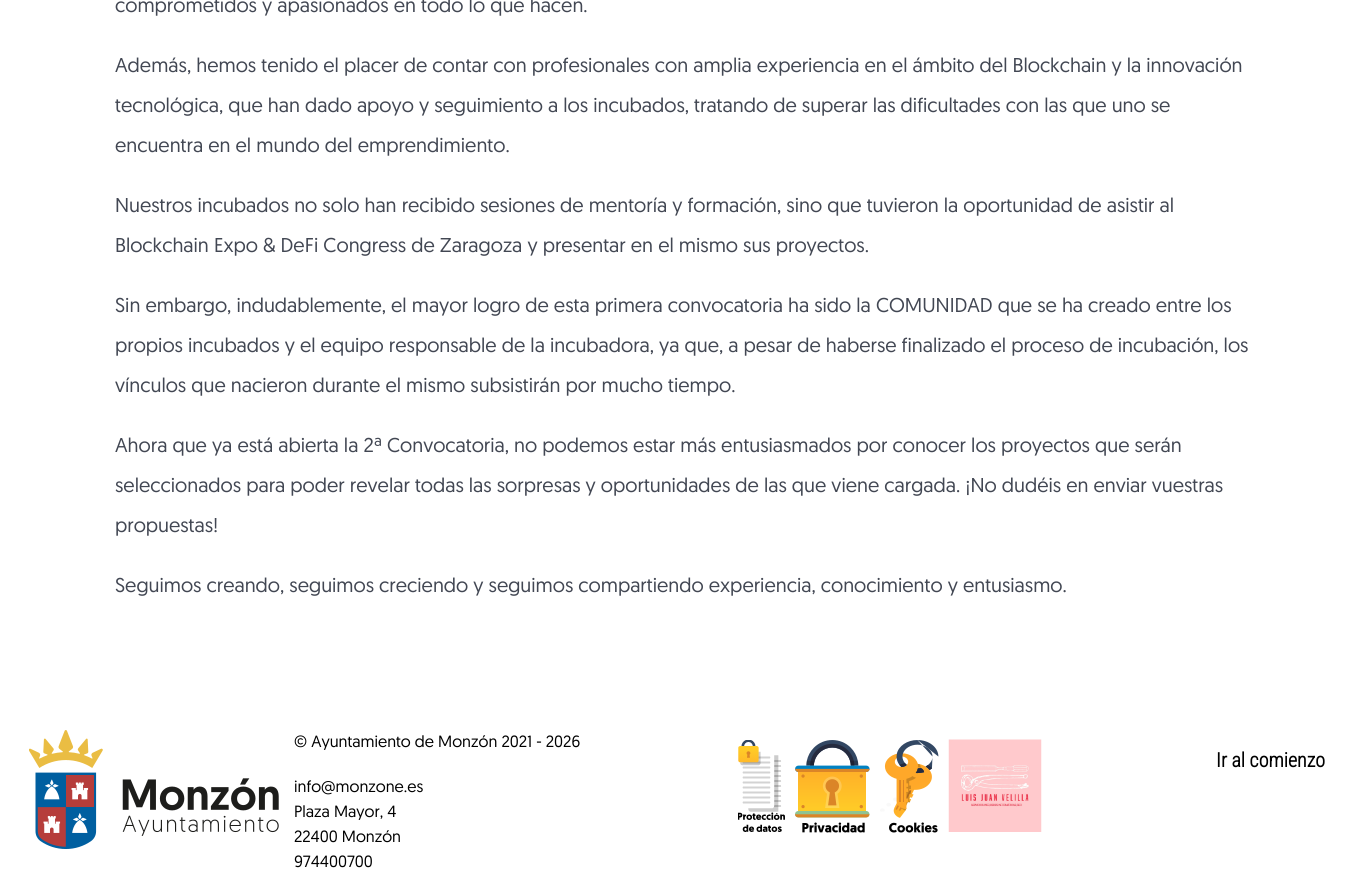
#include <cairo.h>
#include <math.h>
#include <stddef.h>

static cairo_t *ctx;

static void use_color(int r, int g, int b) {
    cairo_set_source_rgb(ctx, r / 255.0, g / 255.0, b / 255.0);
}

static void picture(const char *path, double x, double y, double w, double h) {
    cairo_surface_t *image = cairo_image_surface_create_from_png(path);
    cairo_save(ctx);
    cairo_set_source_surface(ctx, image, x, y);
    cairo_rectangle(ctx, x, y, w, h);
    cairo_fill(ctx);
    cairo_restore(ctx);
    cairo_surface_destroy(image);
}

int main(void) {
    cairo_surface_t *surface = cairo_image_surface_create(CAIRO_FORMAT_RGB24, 1367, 894);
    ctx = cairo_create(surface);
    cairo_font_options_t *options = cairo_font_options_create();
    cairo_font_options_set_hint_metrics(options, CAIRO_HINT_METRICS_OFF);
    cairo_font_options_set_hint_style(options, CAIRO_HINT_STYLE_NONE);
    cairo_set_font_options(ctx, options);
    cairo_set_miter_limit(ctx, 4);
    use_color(255, 255, 255);
    cairo_paint(ctx);
    cairo_select_font_face(ctx, "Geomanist", CAIRO_FONT_SLANT_NORMAL, CAIRO_FONT_WEIGHT_NORMAL);
    cairo_set_font_size(ctx, 20);
    use_color(66, 71, 83);
    cairo_move_to(ctx, 115, 12);
    cairo_show_text(ctx, "comprometidos y apasionados en todo lo que hacen.");
    cairo_move_to(ctx, 115, 72);
    cairo_show_text(ctx, "Además, hemos tenido el placer de contar con profesionales con amplia experiencia en el ámbito del Blockchain y la innovación");
    cairo_move_to(ctx, 115, 112);
    cairo_show_text(ctx, "tecnológica, que han dado apoyo y seguimiento a los incubados, tratando de superar las dificultades con las que uno se");
    cairo_move_to(ctx, 115, 152);
    cairo_show_text(ctx, "encuentra en el mundo del emprendimiento.");
    cairo_move_to(ctx, 115, 212);
    cairo_show_text(ctx, "Nuestros incubados no solo han recibido sesiones de mentoría y formación, sino que tuvieron la oportunidad de asistir al");
    cairo_move_to(ctx, 115, 252);
    cairo_show_text(ctx, "Blockchain Expo & DeFi Congress de Zaragoza y presentar en el mismo sus proyectos.");
    cairo_move_to(ctx, 115, 312);
    cairo_show_text(ctx, "Sin embargo, indudablemente, el mayor logro de esta primera convocatoria ha sido la COMUNIDAD que se ha creado entre los");
    cairo_move_to(ctx, 115, 352);
    cairo_show_text(ctx, "propios incubados y el equipo responsable de la incubadora, ya que, a pesar de haberse finalizado el proceso de incubación, los");
    cairo_move_to(ctx, 115, 392);
    cairo_show_text(ctx, "vínculos que nacieron durante el mismo subsistirán por mucho tiempo.");
    cairo_move_to(ctx, 115, 452);
    cairo_show_text(ctx, "Ahora que ya está abierta la 2ª Convocatoria, no podemos estar más entusiasmados por conocer los proyectos que serán");
    cairo_move_to(ctx, 115, 492);
    cairo_show_text(ctx, "seleccionados para poder revelar todas las sorpresas y oportunidades de las que viene cargada. ¡No dudéis en enviar vuestras");
    cairo_move_to(ctx, 115, 532);
    cairo_show_text(ctx, "propuestas!");
    cairo_move_to(ctx, 115, 592);
    cairo_show_text(ctx, "Seguimos creando, seguimos creciendo y seguimos compartiendo experiencia, conocimiento y entusiasmo.");
    picture("img1.png", 29, 730, 250, 119);
    cairo_set_font_size(ctx, 16.25);
    use_color(0, 0, 0);
    cairo_move_to(ctx, 294, 747);
    cairo_show_text(ctx, "© Ayuntamiento de Monzón 2021 - 2026");
    cairo_move_to(ctx, 294, 792);
    cairo_show_text(ctx, "info@monzone.es");
    cairo_move_to(ctx, 294, 817);
    cairo_show_text(ctx, "Plaza Mayor, 4");
    cairo_move_to(ctx, 294, 842);
    cairo_show_text(ctx, "22400 Monzón");
    cairo_move_to(ctx, 294, 867);
    cairo_show_text(ctx, "974400700");
    picture("img2.png", 738, 740, 47, 92);
    picture("img3.png", 795, 740, 75, 93);
    picture("img4.png", 880, 740, 59, 93);
    picture("img5.png", 948, 739, 94, 93);
    cairo_select_font_face(ctx, "Roboto Condensed", CAIRO_FONT_SLANT_NORMAL, CAIRO_FONT_WEIGHT_BOLD);
    cairo_set_font_size(ctx, 20);
    cairo_move_to(ctx, 1216, 767);
    cairo_show_text(ctx, "Ir al comienzo");
    cairo_surface_write_to_png(surface, "result.png");
    cairo_font_options_destroy(options);
    cairo_destroy(ctx);
    cairo_surface_destroy(surface);
    return 0;
}
